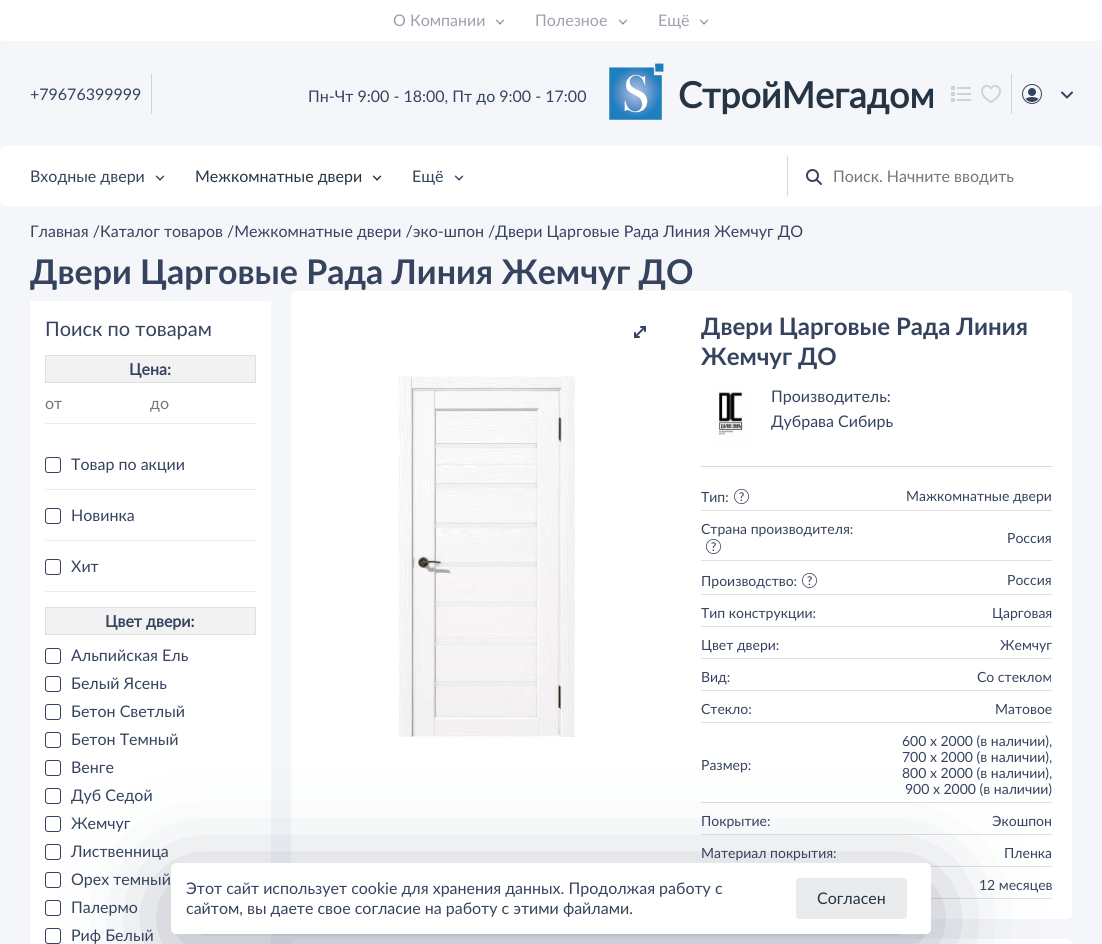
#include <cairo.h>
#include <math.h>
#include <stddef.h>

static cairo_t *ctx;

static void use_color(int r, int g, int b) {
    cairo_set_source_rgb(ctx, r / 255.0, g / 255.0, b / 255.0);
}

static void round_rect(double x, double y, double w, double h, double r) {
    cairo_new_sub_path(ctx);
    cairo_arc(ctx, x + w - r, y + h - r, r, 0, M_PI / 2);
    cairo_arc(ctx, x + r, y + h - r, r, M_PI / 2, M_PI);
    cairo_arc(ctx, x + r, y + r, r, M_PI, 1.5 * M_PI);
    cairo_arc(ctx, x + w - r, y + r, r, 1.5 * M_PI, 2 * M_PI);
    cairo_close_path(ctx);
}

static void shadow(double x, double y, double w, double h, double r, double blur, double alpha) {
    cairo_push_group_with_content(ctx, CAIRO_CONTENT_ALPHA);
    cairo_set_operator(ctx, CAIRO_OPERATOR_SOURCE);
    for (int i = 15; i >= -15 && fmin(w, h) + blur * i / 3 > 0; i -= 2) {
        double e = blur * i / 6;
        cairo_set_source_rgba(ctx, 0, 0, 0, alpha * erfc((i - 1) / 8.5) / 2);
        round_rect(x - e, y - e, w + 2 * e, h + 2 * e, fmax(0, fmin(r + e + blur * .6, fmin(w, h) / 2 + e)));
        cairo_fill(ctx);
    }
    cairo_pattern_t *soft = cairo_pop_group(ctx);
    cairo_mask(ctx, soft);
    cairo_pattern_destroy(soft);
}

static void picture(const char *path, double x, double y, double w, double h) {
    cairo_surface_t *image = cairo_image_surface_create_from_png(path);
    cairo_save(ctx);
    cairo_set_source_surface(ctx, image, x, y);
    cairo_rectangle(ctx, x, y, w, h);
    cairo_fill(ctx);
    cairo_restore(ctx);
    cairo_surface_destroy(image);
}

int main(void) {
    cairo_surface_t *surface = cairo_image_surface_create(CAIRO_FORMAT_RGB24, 1102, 944);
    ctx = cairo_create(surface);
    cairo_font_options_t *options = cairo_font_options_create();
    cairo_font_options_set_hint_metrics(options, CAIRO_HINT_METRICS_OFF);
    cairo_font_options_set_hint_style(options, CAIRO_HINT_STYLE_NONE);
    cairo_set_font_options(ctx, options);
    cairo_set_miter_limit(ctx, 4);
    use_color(245, 246, 250);
    cairo_paint(ctx);
    use_color(255, 255, 255);
    cairo_new_path(ctx);
    cairo_move_to(ctx, 0, 0);
    cairo_line_to(ctx, 1102, 0);
    cairo_line_to(ctx, 1102, 36);
    cairo_curve_to(ctx, 1102, 39, 1100, 41, 1097, 41);
    cairo_line_to(ctx, 5, 41);
    cairo_curve_to(ctx, 2, 41, 0, 39, 0, 36);
    cairo_close_path(ctx);
    cairo_fill(ctx);
    cairo_select_font_face(ctx, "Lato", CAIRO_FONT_SLANT_NORMAL, CAIRO_FONT_WEIGHT_NORMAL);
    cairo_set_font_size(ctx, 16);
    use_color(155, 161, 175);
    cairo_move_to(ctx, 393, 26);
    cairo_show_text(ctx, "О Компании");
    picture("img1.png", 495, 19, 10, 6);
    cairo_move_to(ctx, 535, 26);
    cairo_show_text(ctx, "Полезное");
    picture("img1.png", 618, 19, 10, 6);
    cairo_move_to(ctx, 658, 26);
    cairo_show_text(ctx, "Ещё");
    picture("img1.png", 699, 19, 10, 6);
    use_color(54, 67, 94);
    cairo_move_to(ctx, 30, 100);
    cairo_show_text(ctx, "+79676399999");
    use_color(207, 210, 219);
    cairo_rectangle(ctx, 151, 74, 1, 40);
    cairo_fill(ctx);
    use_color(54, 67, 94);
    cairo_move_to(ctx, 308, 102);
    cairo_show_text(ctx, "Пн-Чт 9:00 - 18:00, Пт до 9:00 - 17:00");
    picture("img2.png", 609, 63, 55, 57);
    cairo_select_font_face(ctx, "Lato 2", CAIRO_FONT_SLANT_NORMAL, CAIRO_FONT_WEIGHT_BOLD);
    cairo_set_font_size(ctx, 36);
    use_color(38, 53, 67);
    cairo_move_to(ctx, 678, 108);
    cairo_show_text(ctx, "СтройМегадом");
    picture("img3.png", 951, 86, 20, 16);
    cairo_new_path(ctx);
    cairo_move_to(ctx, 991, 102);
    cairo_curve_to(ctx, 973.5, 92.5, 986, 80.5, 991, 88.5);
    cairo_curve_to(ctx, 996, 80.5, 1008.5, 92.5, 991, 102);
    cairo_close_path(ctx);
    use_color(207, 210, 219);
    cairo_set_line_cap(ctx, CAIRO_LINE_CAP_ROUND);
    cairo_set_line_join(ctx, CAIRO_LINE_JOIN_ROUND);
    cairo_stroke(ctx);
    cairo_rectangle(ctx, 1011, 74, 1, 40);
    cairo_fill(ctx);
    picture("img4.png", 1022, 84, 20, 20);
    cairo_new_path(ctx);
    cairo_move_to(ctx, 1062, 92.5);
    cairo_line_to(ctx, 1067, 97.5);
    cairo_move_to(ctx, 1072, 92.5);
    cairo_line_to(ctx, 1067, 97.5);
    use_color(54, 67, 94);
    cairo_set_line_join(ctx, CAIRO_LINE_JOIN_MITER);
    cairo_stroke(ctx);
    use_color(255, 255, 255);
    round_rect(0, 146, 1102, 60, 5);
    cairo_fill(ctx);
    cairo_select_font_face(ctx, "Lato", CAIRO_FONT_SLANT_NORMAL, CAIRO_FONT_WEIGHT_NORMAL);
    cairo_set_font_size(ctx, 16);
    use_color(54, 67, 94);
    cairo_move_to(ctx, 30, 182);
    cairo_show_text(ctx, "Входные двери");
    picture("img5.png", 155, 175, 10, 6);
    use_color(38, 53, 67);
    cairo_move_to(ctx, 195, 182);
    cairo_show_text(ctx, "Межкомнатные двери");
    picture("img6.png", 372, 175, 10, 6);
    use_color(54, 67, 94);
    cairo_move_to(ctx, 412, 182);
    cairo_show_text(ctx, "Ещё");
    picture("img5.png", 454, 175, 10, 6);
    use_color(215, 217, 223);
    cairo_rectangle(ctx, 787, 156, 1, 40);
    cairo_fill(ctx);
    cairo_arc(ctx, 812.5, 175.5, 5.5, 0, 2 * M_PI);
    use_color(54, 67, 94);
    cairo_set_line_cap(ctx, CAIRO_LINE_CAP_BUTT);
    cairo_stroke(ctx);
    cairo_new_path(ctx);
    cairo_move_to(ctx, 821, 184);
    cairo_line_to(ctx, 817, 180);
    cairo_set_line_cap(ctx, CAIRO_LINE_CAP_ROUND);
    cairo_stroke(ctx);
    use_color(117, 117, 117);
    cairo_move_to(ctx, 833, 182);
    cairo_show_text(ctx, "Поиск. Начните вводить");
    use_color(54, 67, 94);
    cairo_move_to(ctx, 30, 237);
    cairo_show_text(ctx, "Главная /Каталог товаров /Межкомнатные двери /эко-шпон /Двери Царговые Рада Линия Жемчуг ДО");
    cairo_select_font_face(ctx, "Lato", CAIRO_FONT_SLANT_NORMAL, CAIRO_FONT_WEIGHT_BOLD);
    cairo_set_font_size(ctx, 34);
    cairo_move_to(ctx, 30, 284);
    cairo_show_text(ctx, "Двери Царговые Рада Линия Жемчуг ДО");
    use_color(255, 255, 255);
    cairo_rectangle(ctx, 30, 301, 241, 643);
    cairo_fill(ctx);
    cairo_select_font_face(ctx, "Lato", CAIRO_FONT_SLANT_NORMAL, CAIRO_FONT_WEIGHT_NORMAL);
    cairo_set_font_size(ctx, 20);
    use_color(54, 67, 94);
    cairo_move_to(ctx, 45, 336);
    cairo_show_text(ctx, "Поиск по товарам");
    use_color(242, 242, 242);
    cairo_rectangle(ctx, 45.5, 355.5, 210, 27);
    cairo_fill_preserve(ctx);
    use_color(223, 223, 223);
    cairo_set_line_width(ctx, 1);
    cairo_set_line_cap(ctx, CAIRO_LINE_CAP_BUTT);
    cairo_stroke(ctx);
    cairo_select_font_face(ctx, "Lato 2", CAIRO_FONT_SLANT_NORMAL, CAIRO_FONT_WEIGHT_BOLD);
    cairo_set_font_size(ctx, 16);
    use_color(54, 67, 94);
    cairo_move_to(ctx, 129, 375);
    cairo_show_text(ctx, "Цена:");
    use_color(235, 236, 239);
    cairo_rectangle(ctx, 45, 423, 211, 1);
    cairo_fill(ctx);
    cairo_select_font_face(ctx, "Lato", CAIRO_FONT_SLANT_NORMAL, CAIRO_FONT_WEIGHT_NORMAL);
    use_color(117, 117, 117);
    cairo_move_to(ctx, 45, 409);
    cairo_show_text(ctx, "от");
    cairo_move_to(ctx, 150, 409);
    cairo_show_text(ctx, "до");
    use_color(235, 236, 239);
    cairo_rectangle(ctx, 45, 489, 211, 1);
    cairo_fill(ctx);
    round_rect(45.5, 457.5, 15, 15, 2.5);
    use_color(54, 67, 94);
    cairo_stroke(ctx);
    cairo_move_to(ctx, 71, 470);
    cairo_show_text(ctx, "Товар по акции");
    use_color(235, 236, 239);
    cairo_rectangle(ctx, 45, 540, 211, 1);
    cairo_fill(ctx);
    round_rect(45.5, 508.5, 15, 15, 2.5);
    use_color(54, 67, 94);
    cairo_stroke(ctx);
    cairo_move_to(ctx, 71, 521);
    cairo_show_text(ctx, "Новинка");
    use_color(235, 236, 239);
    cairo_rectangle(ctx, 45, 591, 211, 1);
    cairo_fill(ctx);
    round_rect(45.5, 559.5, 15, 15, 2.5);
    use_color(54, 67, 94);
    cairo_stroke(ctx);
    cairo_move_to(ctx, 71, 572);
    cairo_show_text(ctx, "Хит");
    use_color(242, 242, 242);
    cairo_rectangle(ctx, 45.5, 607.5, 210, 27);
    cairo_fill_preserve(ctx);
    use_color(223, 223, 223);
    cairo_stroke(ctx);
    cairo_select_font_face(ctx, "Lato 2", CAIRO_FONT_SLANT_NORMAL, CAIRO_FONT_WEIGHT_BOLD);
    use_color(54, 67, 94);
    cairo_move_to(ctx, 105, 627);
    cairo_show_text(ctx, "Цвет двери:");
    round_rect(45.5, 648.5, 15, 15, 2.5);
    cairo_stroke(ctx);
    cairo_select_font_face(ctx, "Lato", CAIRO_FONT_SLANT_NORMAL, CAIRO_FONT_WEIGHT_NORMAL);
    cairo_move_to(ctx, 71, 661);
    cairo_show_text(ctx, "Альпийская Ель");
    round_rect(45.5, 676.5, 15, 15, 2.5);
    cairo_stroke(ctx);
    cairo_move_to(ctx, 71, 689);
    cairo_show_text(ctx, "Белый Ясень");
    round_rect(45.5, 704.5, 15, 15, 2.5);
    cairo_stroke(ctx);
    cairo_move_to(ctx, 71, 717);
    cairo_show_text(ctx, "Бетон Светлый");
    round_rect(45.5, 732.5, 15, 15, 2.5);
    cairo_stroke(ctx);
    cairo_move_to(ctx, 71, 745);
    cairo_show_text(ctx, "Бетон Темный");
    round_rect(45.5, 760.5, 15, 15, 2.5);
    cairo_stroke(ctx);
    cairo_move_to(ctx, 71, 773);
    cairo_show_text(ctx, "Венге");
    round_rect(45.5, 788.5, 15, 15, 2.5);
    cairo_stroke(ctx);
    cairo_move_to(ctx, 71, 801);
    cairo_show_text(ctx, "Дуб Седой");
    round_rect(45.5, 816.5, 15, 15, 2.5);
    cairo_stroke(ctx);
    cairo_move_to(ctx, 71, 829);
    cairo_show_text(ctx, "Жемчуг");
    round_rect(45.5, 844.5, 15, 15, 2.5);
    cairo_stroke(ctx);
    cairo_move_to(ctx, 71, 857);
    cairo_show_text(ctx, "Лиственница");
    round_rect(45.5, 872.5, 15, 15, 2.5);
    cairo_stroke(ctx);
    cairo_move_to(ctx, 71, 885);
    cairo_show_text(ctx, "Орех темный");
    round_rect(45.5, 900.5, 15, 15, 2.5);
    cairo_stroke(ctx);
    cairo_move_to(ctx, 71, 913);
    cairo_show_text(ctx, "Палермо");
    round_rect(45.5, 928.5, 15, 15, 2.5);
    cairo_stroke(ctx);
    cairo_move_to(ctx, 71, 941);
    cairo_show_text(ctx, "Риф Белый");
    use_color(255, 255, 255);
    round_rect(291, 291, 781, 628, 5);
    cairo_fill(ctx);
    picture("img7.png", 634, 326, 12, 12);
    picture("img8.png", 398, 376, 177, 361);
    cairo_select_font_face(ctx, "Lato", CAIRO_FONT_SLANT_NORMAL, CAIRO_FONT_WEIGHT_BOLD);
    cairo_set_font_size(ctx, 24);
    use_color(54, 67, 94);
    cairo_move_to(ctx, 701, 335);
    cairo_show_text(ctx, "Двери Царговые Рада Линия");
    cairo_move_to(ctx, 701, 365);
    cairo_show_text(ctx, "Жемчуг ДО");
    picture("img9.png", 701, 386, 60, 60);
    cairo_select_font_face(ctx, "Lato", CAIRO_FONT_SLANT_NORMAL, CAIRO_FONT_WEIGHT_NORMAL);
    cairo_set_font_size(ctx, 16);
    cairo_move_to(ctx, 771, 402);
    cairo_show_text(ctx, "Производитель:");
    cairo_move_to(ctx, 771, 427);
    cairo_show_text(ctx, "Дубрава Сибирь");
    use_color(215, 217, 223);
    cairo_rectangle(ctx, 701, 466, 351, 1);
    cairo_fill(ctx);
    use_color(223, 223, 223);
    cairo_rectangle(ctx, 701, 510, 351, 1);
    cairo_fill(ctx);
    cairo_set_font_size(ctx, 14);
    use_color(54, 67, 94);
    cairo_move_to(ctx, 701, 502);
    cairo_show_text(ctx, "Тип:");
    picture("img10.png", 734, 489, 15, 15);
    cairo_move_to(ctx, 906, 501);
    cairo_show_text(ctx, "Мажкомнатные двери");
    use_color(223, 223, 223);
    cairo_rectangle(ctx, 701, 560, 351, 1);
    cairo_fill(ctx);
    use_color(54, 67, 94);
    cairo_move_to(ctx, 701, 534);
    cairo_show_text(ctx, "Страна производителя:");
    picture("img10.png", 706, 539, 15, 15);
    cairo_move_to(ctx, 1007, 543);
    cairo_show_text(ctx, "Россия");
    use_color(223, 223, 223);
    cairo_rectangle(ctx, 701, 594, 351, 1);
    cairo_fill(ctx);
    use_color(54, 67, 94);
    cairo_move_to(ctx, 701, 586);
    cairo_show_text(ctx, "Производство:");
    picture("img10.png", 802, 573, 15, 15);
    cairo_move_to(ctx, 1007, 585);
    cairo_show_text(ctx, "Россия");
    use_color(223, 223, 223);
    cairo_rectangle(ctx, 701, 626, 351, 1);
    cairo_fill(ctx);
    use_color(54, 67, 94);
    cairo_move_to(ctx, 701, 618);
    cairo_show_text(ctx, "Тип конструкции:");
    cairo_move_to(ctx, 992, 618);
    cairo_show_text(ctx, "Царговая");
    use_color(223, 223, 223);
    cairo_rectangle(ctx, 701, 658, 351, 1);
    cairo_fill(ctx);
    use_color(54, 67, 94);
    cairo_move_to(ctx, 701, 650);
    cairo_show_text(ctx, "Цвет двери:");
    cairo_move_to(ctx, 1000, 650);
    cairo_show_text(ctx, "Жемчуг");
    use_color(223, 223, 223);
    cairo_rectangle(ctx, 701, 690, 351, 1);
    cairo_fill(ctx);
    use_color(54, 67, 94);
    cairo_move_to(ctx, 701, 682);
    cairo_show_text(ctx, "Вид:");
    cairo_move_to(ctx, 977, 682);
    cairo_show_text(ctx, "Со стеклом");
    use_color(223, 223, 223);
    cairo_rectangle(ctx, 701, 722, 351, 1);
    cairo_fill(ctx);
    use_color(54, 67, 94);
    cairo_move_to(ctx, 701, 714);
    cairo_show_text(ctx, "Стекло:");
    cairo_move_to(ctx, 995, 714);
    cairo_show_text(ctx, "Матовое");
    use_color(223, 223, 223);
    cairo_rectangle(ctx, 701, 802, 351, 1);
    cairo_fill(ctx);
    use_color(54, 67, 94);
    cairo_move_to(ctx, 701, 770);
    cairo_show_text(ctx, "Размер:");
    cairo_move_to(ctx, 902, 746);
    cairo_show_text(ctx, "600 x 2000 (в наличии),");
    cairo_move_to(ctx, 902, 762);
    cairo_show_text(ctx, "700 x 2000 (в наличии),");
    cairo_move_to(ctx, 902, 778);
    cairo_show_text(ctx, "800 x 2000 (в наличии),");
    cairo_move_to(ctx, 905, 794);
    cairo_show_text(ctx, "900 x 2000 (в наличии)");
    use_color(223, 223, 223);
    cairo_rectangle(ctx, 701, 834, 351, 1);
    cairo_fill(ctx);
    use_color(54, 67, 94);
    cairo_move_to(ctx, 701, 826);
    cairo_show_text(ctx, "Покрытие:");
    cairo_move_to(ctx, 992, 826);
    cairo_show_text(ctx, "Экошпон");
    use_color(223, 223, 223);
    cairo_rectangle(ctx, 930, 866, 122, 1);
    cairo_fill(ctx);
    use_color(54, 67, 94);
    cairo_move_to(ctx, 701, 858);
    cairo_show_text(ctx, "Материал покрытия:");
    cairo_move_to(ctx, 1004, 858);
    cairo_show_text(ctx, "Пленка");
    use_color(223, 223, 223);
    cairo_rectangle(ctx, 931, 898, 121, 1);
    cairo_fill(ctx);
    use_color(54, 67, 94);
    cairo_move_to(ctx, 979, 890);
    cairo_show_text(ctx, "12 месяцев");
    use_color(255, 255, 255);
    round_rect(291, 939, 781, 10, 5);
    cairo_fill(ctx);
    use_color(54, 67, 94);
    shadow(181, 893, 740, 51, 0, 50, 0.5);
    use_color(255, 255, 255);
    round_rect(171, 863, 760, 71, 5);
    cairo_fill(ctx);
    cairo_set_font_size(ctx, 16);
    use_color(54, 67, 94);
    cairo_move_to(ctx, 186, 894);
    cairo_show_text(ctx, "Этот сайт использует cookie для хранения данных. Продолжая работу с");
    cairo_move_to(ctx, 186, 914);
    cairo_show_text(ctx, "сайтом, вы даете свое согласие на работу с этими файлами.");
    use_color(233, 235, 236);
    round_rect(796, 878, 111, 41, 3);
    cairo_fill(ctx);
    use_color(38, 53, 67);
    cairo_move_to(ctx, 817, 904);
    cairo_show_text(ctx, "Согласен");
    cairo_surface_write_to_png(surface, "result.png");
    cairo_font_options_destroy(options);
    cairo_destroy(ctx);
    cairo_surface_destroy(surface);
    return 0;
}
